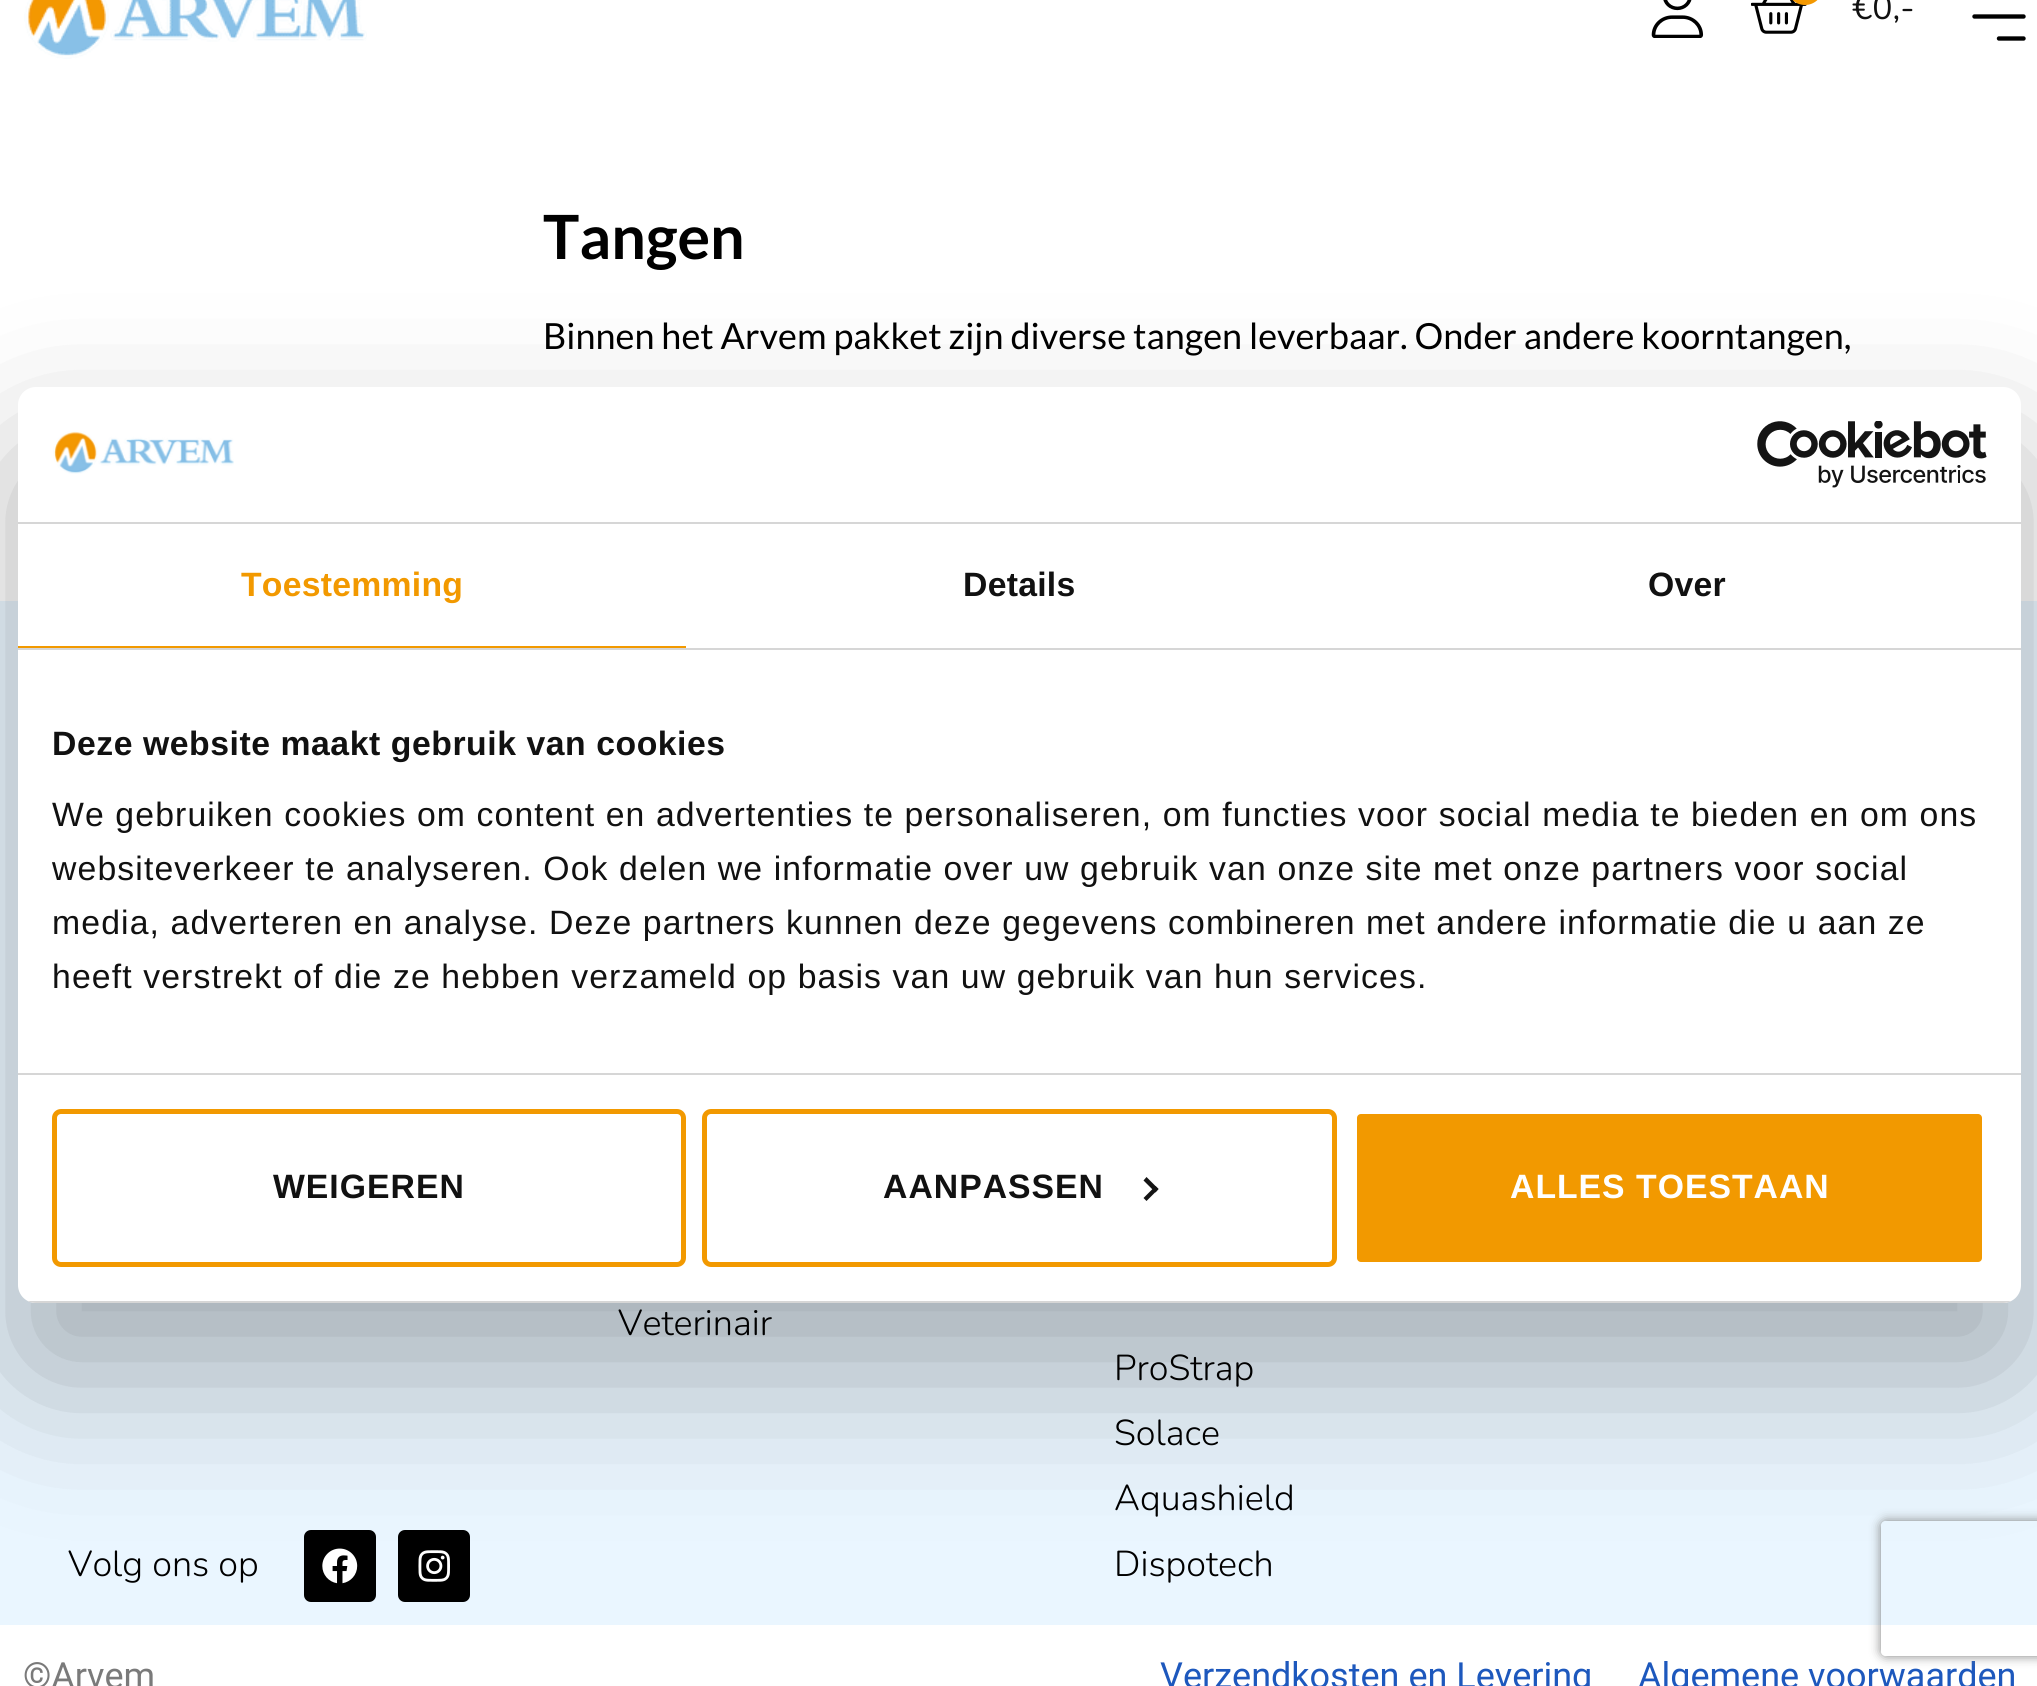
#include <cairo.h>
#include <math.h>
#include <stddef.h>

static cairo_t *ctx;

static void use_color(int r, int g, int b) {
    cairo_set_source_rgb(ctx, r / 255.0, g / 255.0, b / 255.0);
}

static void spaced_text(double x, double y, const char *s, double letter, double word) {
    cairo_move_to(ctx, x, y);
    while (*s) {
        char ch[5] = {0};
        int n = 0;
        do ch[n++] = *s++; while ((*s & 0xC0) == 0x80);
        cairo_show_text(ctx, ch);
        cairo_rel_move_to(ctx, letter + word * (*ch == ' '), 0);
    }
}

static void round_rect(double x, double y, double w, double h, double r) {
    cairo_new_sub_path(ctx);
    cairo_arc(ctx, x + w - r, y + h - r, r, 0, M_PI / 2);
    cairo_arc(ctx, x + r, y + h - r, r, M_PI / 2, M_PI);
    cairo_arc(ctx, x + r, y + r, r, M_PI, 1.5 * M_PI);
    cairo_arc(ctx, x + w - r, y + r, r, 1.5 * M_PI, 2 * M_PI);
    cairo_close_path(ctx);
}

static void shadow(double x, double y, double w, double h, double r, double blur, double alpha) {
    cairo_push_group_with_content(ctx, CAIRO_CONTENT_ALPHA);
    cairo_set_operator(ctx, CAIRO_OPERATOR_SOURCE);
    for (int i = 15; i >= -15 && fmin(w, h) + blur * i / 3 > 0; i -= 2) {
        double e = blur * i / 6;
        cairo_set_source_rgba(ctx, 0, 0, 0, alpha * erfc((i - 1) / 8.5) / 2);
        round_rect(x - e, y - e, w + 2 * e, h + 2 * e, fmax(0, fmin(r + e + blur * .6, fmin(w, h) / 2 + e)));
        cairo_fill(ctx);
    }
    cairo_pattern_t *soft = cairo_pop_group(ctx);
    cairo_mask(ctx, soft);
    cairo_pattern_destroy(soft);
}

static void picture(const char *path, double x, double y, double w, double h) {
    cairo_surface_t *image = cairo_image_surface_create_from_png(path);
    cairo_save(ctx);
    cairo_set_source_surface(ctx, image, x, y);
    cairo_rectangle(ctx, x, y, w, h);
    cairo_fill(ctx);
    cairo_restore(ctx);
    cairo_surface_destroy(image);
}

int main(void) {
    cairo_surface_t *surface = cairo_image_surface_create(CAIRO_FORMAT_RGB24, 2037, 1686);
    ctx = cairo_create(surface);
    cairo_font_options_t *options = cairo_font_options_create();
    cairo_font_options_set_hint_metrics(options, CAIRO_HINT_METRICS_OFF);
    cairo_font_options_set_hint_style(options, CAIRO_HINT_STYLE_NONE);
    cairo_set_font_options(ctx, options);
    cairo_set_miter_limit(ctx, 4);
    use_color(255, 255, 255);
    cairo_paint(ctx);
    picture("img1.png", 24, 0, 343, 59);
    picture("img2.png", 1651, 0, 53, 38);
    picture("img3.png", 1751, 0, 56, 34);
    use_color(243, 152, 1);
    round_rect(1787, -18, 36, 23, 18);
    cairo_fill(ctx);
    cairo_select_font_face(ctx, "Nunito", CAIRO_FONT_SLANT_NORMAL, CAIRO_FONT_WEIGHT_NORMAL);
    cairo_set_font_size(ctx, 33.75);
    use_color(17, 17, 17);
    cairo_move_to(ctx, 1852, 19);
    cairo_show_text(ctx, "€0,-");
    cairo_new_path(ctx);
    cairo_move_to(ctx, 2023.5, -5.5);
    cairo_line_to(ctx, 1987, -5.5);
    cairo_move_to(ctx, 2023.5, 16.5);
    cairo_line_to(ctx, 1974.5, 16.5);
    cairo_move_to(ctx, 2023.5, 38.5);
    cairo_line_to(ctx, 1999, 38.5);
    use_color(0, 0, 0);
    cairo_set_line_width(ctx, 4.4);
    cairo_set_line_cap(ctx, CAIRO_LINE_CAP_ROUND);
    cairo_set_line_join(ctx, CAIRO_LINE_JOIN_ROUND);
    cairo_stroke(ctx);
    cairo_select_font_face(ctx, "Lato", CAIRO_FONT_SLANT_NORMAL, CAIRO_FONT_WEIGHT_BOLD);
    cairo_set_font_size(ctx, 61);
    cairo_move_to(ctx, 543, 259);
    cairo_show_text(ctx, "Tangen");
    cairo_select_font_face(ctx, "Lato", CAIRO_FONT_SLANT_NORMAL, CAIRO_FONT_WEIGHT_NORMAL);
    cairo_set_font_size(ctx, 36);
    cairo_move_to(ctx, 543, 349);
    cairo_show_text(ctx, "Binnen het Arvem pakket zijn diverse tangen leverbaar. Onder andere koorntangen,");
    use_color(234, 246, 255);
    cairo_rectangle(ctx, 0, 601, 2037, 1024);
    cairo_fill(ctx);
    use_color(0, 0, 0);
    round_rect(304, 1530, 72, 72, 7);
    cairo_fill(ctx);
    picture("img6.png", 322, 1548, 36, 36);
    round_rect(398, 1530, 72, 72, 7);
    cairo_fill(ctx);
    picture("img7.png", 418, 1550, 32, 32);
    use_color(0, 0, 0);
    shadow(18, 459, 2003, 916, 18, 76.5, 0.3);
    use_color(255, 255, 255);
    round_rect(18, 387, 2003, 916, 18);
    cairo_fill(ctx);
    use_color(214, 214, 214);
    cairo_rectangle(ctx, 18, 522, 2003, 2);
    cairo_fill(ctx);
    picture("img4.png", 53, 431, 181, 43);
    picture("img5.png", 1757, 421, 230, 67);
    cairo_rectangle(ctx, 18, 648, 2003, 2);
    cairo_fill(ctx);
    use_color(242, 153, 0);
    cairo_rectangle(ctx, 18, 646, 668, 2);
    cairo_fill(ctx);
    cairo_select_font_face(ctx, "Liberation Sans", CAIRO_FONT_SLANT_NORMAL, CAIRO_FONT_WEIGHT_BOLD);
    cairo_set_font_size(ctx, 33.75);
    spaced_text(241, 596, "Toestemming", 0.25, 0);
    use_color(17, 17, 17);
    spaced_text(963, 596, "Details", 0.25, 0);
    spaced_text(1648, 596, "Over", 0.25, 0);
    use_color(214, 214, 214);
    cairo_rectangle(ctx, 18, 1073, 2003, 2);
    cairo_fill(ctx);
    use_color(17, 17, 17);
    spaced_text(52, 755, "Deze website maakt gebruik van cookies", 0.55, 0);
    cairo_select_font_face(ctx, "Liberation Sans", CAIRO_FONT_SLANT_NORMAL, CAIRO_FONT_WEIGHT_NORMAL);
    spaced_text(52, 826, "We gebruiken cookies om content en advertenties te personaliseren, om functies voor social media te bieden en om ons", 1.12, 0);
    spaced_text(52, 880, "websiteverkeer te analyseren. Ook delen we informatie over uw gebruik van onze site met onze partners voor social", 1.12, 0);
    spaced_text(52, 934, "media, adverteren en analyse. Deze partners kunnen deze gegevens combineren met andere informatie die u aan ze", 1.12, 0);
    spaced_text(52, 988, "heeft verstrekt of die ze hebben verzameld op basis van uw gebruik van hun services.", 1.12, 0);
    cairo_save(ctx);
    round_rect(18, 387, 2003, 916, 18);
    cairo_clip(ctx);
    use_color(214, 214, 214);
    cairo_rectangle(ctx, 28, 1301, 1983, 2);
    cairo_fill(ctx);
    cairo_restore(ctx);
    round_rect(54.5, 1111.5, 629, 153, 6.5);
    use_color(242, 153, 0);
    cairo_set_line_width(ctx, 5);
    cairo_set_line_cap(ctx, CAIRO_LINE_CAP_BUTT);
    cairo_set_line_join(ctx, CAIRO_LINE_JOIN_MITER);
    cairo_stroke(ctx);
    cairo_select_font_face(ctx, "Liberation Sans", CAIRO_FONT_SLANT_NORMAL, CAIRO_FONT_WEIGHT_BOLD);
    use_color(17, 17, 17);
    spaced_text(273, 1198, "WEIGEREN", 1, 0);
    round_rect(704.5, 1111.5, 630, 153, 6.5);
    use_color(242, 153, 0);
    cairo_stroke(ctx);
    use_color(17, 17, 17);
    spaced_text(883, 1198, "AANPASSEN", 1, 0);
    use_color(20, 20, 20);
    cairo_new_path(ctx);
    cairo_move_to(ctx, 1146.5, 1177);
    cairo_line_to(ctx, 1158.5, 1189);
    cairo_line_to(ctx, 1155.5, 1192.5);
    cairo_line_to(ctx, 1143.5, 1180.5);
    cairo_close_path(ctx);
    cairo_fill(ctx);
    cairo_new_path(ctx);
    cairo_move_to(ctx, 1155.5, 1186);
    cairo_line_to(ctx, 1158.5, 1189);
    cairo_line_to(ctx, 1146.5, 1201);
    cairo_line_to(ctx, 1143.5, 1198);
    cairo_close_path(ctx);
    cairo_fill(ctx);
    use_color(242, 153, 0);
    round_rect(1354.5, 1111.5, 630, 153, 6.5);
    cairo_fill_preserve(ctx);
    use_color(255, 255, 255);
    cairo_stroke(ctx);
    spaced_text(1510, 1198, "ALLES TOESTAAN", 1, 0);
    cairo_select_font_face(ctx, "Nunito Light", CAIRO_FONT_SLANT_NORMAL, CAIRO_FONT_WEIGHT_NORMAL);
    cairo_set_font_size(ctx, 36);
    use_color(0, 0, 0);
    cairo_move_to(ctx, 618, 1335);
    cairo_show_text(ctx, "Veterinair");
    cairo_move_to(ctx, 68, 1576);
    cairo_show_text(ctx, "Volg ons op");
    cairo_move_to(ctx, 1114, 1380);
    cairo_show_text(ctx, "ProStrap");
    cairo_move_to(ctx, 1114, 1445);
    cairo_show_text(ctx, "Solace");
    cairo_move_to(ctx, 1114, 1510);
    cairo_show_text(ctx, "Aquashield");
    cairo_move_to(ctx, 1114, 1576);
    cairo_show_text(ctx, "Dispotech");
    cairo_select_font_face(ctx, "Roboto", CAIRO_FONT_SLANT_NORMAL, CAIRO_FONT_WEIGHT_NORMAL);
    use_color(122, 122, 122);
    cairo_move_to(ctx, 23, 1688);
    cairo_show_text(ctx, "©Arvem");
    use_color(29, 88, 189);
    cairo_move_to(ctx, 1160, 1688);
    cairo_show_text(ctx, "Verzendkosten en Levering");
    cairo_move_to(ctx, 1638, 1688);
    cairo_show_text(ctx, "Algemene voorwaarden");
    cairo_save(ctx);
    cairo_set_fill_rule(ctx, CAIRO_FILL_RULE_EVEN_ODD);
    cairo_new_path(ctx);
    cairo_move_to(ctx, 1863, 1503);
    cairo_line_to(ctx, 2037, 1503);
    cairo_line_to(ctx, 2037, 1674);
    cairo_line_to(ctx, 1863, 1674);
    cairo_close_path(ctx);
    cairo_move_to(ctx, 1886, 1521);
    cairo_line_to(ctx, 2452, 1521);
    cairo_curve_to(ctx, 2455, 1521, 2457, 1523, 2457, 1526);
    cairo_line_to(ctx, 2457, 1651);
    cairo_curve_to(ctx, 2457, 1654, 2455, 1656, 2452, 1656);
    cairo_line_to(ctx, 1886, 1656);
    cairo_curve_to(ctx, 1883, 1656, 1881, 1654, 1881, 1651);
    cairo_line_to(ctx, 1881, 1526);
    cairo_curve_to(ctx, 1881, 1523, 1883, 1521, 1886, 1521);
    cairo_close_path(ctx);
    cairo_clip(ctx);
    use_color(128, 128, 128);
    shadow(1881, 1521, 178, 135, 5, 5.5, 1);
    cairo_restore(ctx);
    cairo_surface_write_to_png(surface, "result.png");
    cairo_font_options_destroy(options);
    cairo_destroy(ctx);
    cairo_surface_destroy(surface);
    return 0;
}
